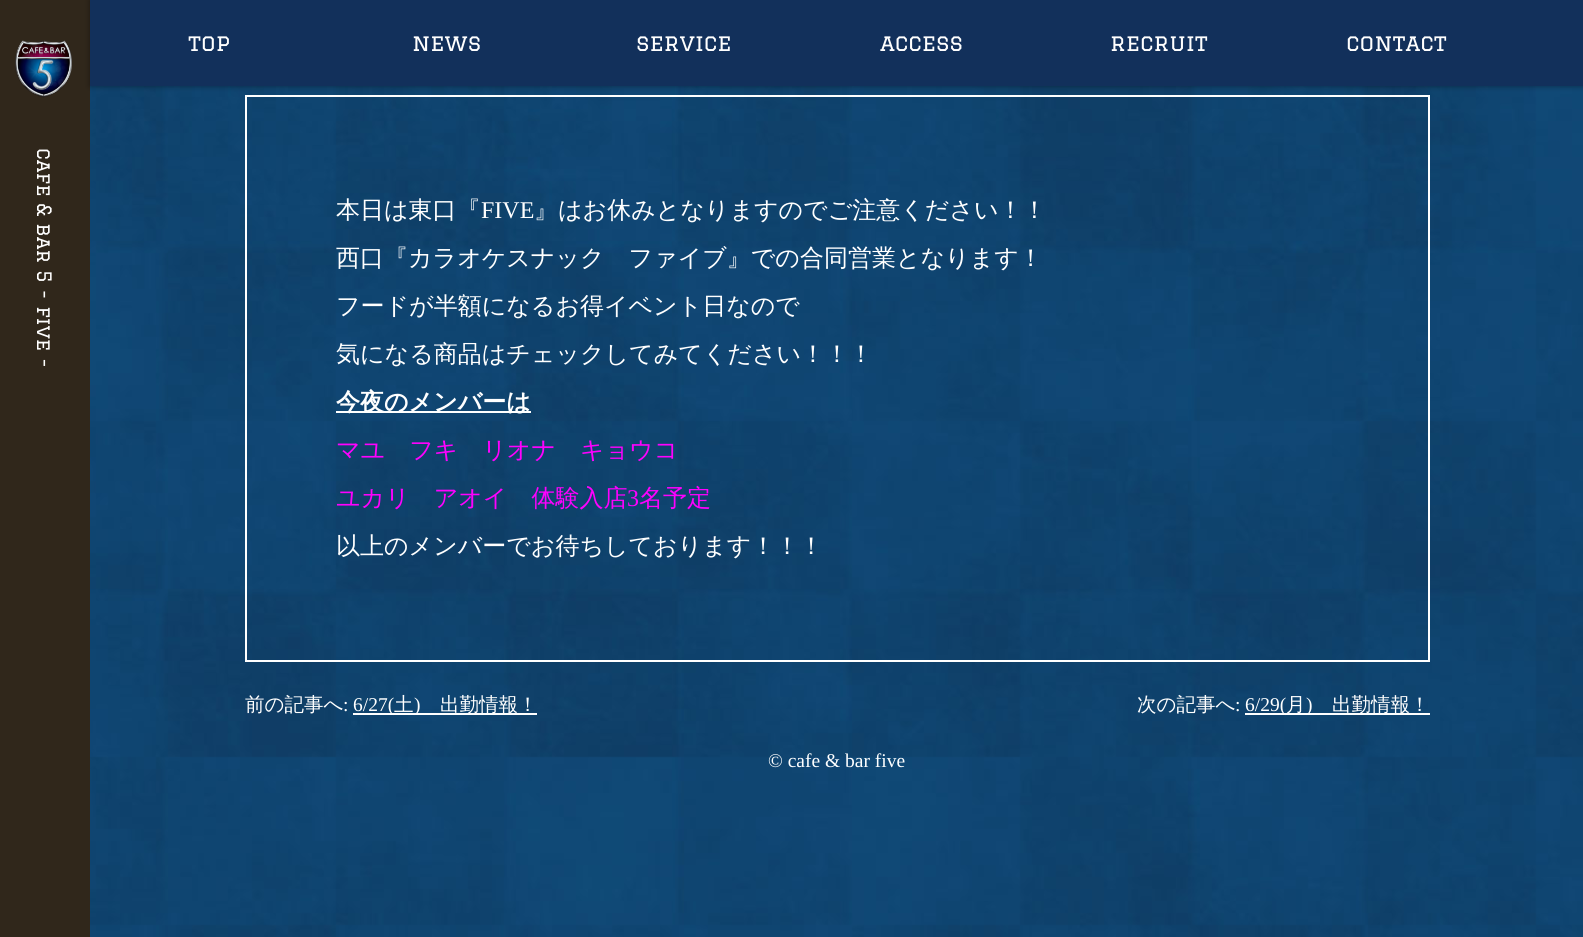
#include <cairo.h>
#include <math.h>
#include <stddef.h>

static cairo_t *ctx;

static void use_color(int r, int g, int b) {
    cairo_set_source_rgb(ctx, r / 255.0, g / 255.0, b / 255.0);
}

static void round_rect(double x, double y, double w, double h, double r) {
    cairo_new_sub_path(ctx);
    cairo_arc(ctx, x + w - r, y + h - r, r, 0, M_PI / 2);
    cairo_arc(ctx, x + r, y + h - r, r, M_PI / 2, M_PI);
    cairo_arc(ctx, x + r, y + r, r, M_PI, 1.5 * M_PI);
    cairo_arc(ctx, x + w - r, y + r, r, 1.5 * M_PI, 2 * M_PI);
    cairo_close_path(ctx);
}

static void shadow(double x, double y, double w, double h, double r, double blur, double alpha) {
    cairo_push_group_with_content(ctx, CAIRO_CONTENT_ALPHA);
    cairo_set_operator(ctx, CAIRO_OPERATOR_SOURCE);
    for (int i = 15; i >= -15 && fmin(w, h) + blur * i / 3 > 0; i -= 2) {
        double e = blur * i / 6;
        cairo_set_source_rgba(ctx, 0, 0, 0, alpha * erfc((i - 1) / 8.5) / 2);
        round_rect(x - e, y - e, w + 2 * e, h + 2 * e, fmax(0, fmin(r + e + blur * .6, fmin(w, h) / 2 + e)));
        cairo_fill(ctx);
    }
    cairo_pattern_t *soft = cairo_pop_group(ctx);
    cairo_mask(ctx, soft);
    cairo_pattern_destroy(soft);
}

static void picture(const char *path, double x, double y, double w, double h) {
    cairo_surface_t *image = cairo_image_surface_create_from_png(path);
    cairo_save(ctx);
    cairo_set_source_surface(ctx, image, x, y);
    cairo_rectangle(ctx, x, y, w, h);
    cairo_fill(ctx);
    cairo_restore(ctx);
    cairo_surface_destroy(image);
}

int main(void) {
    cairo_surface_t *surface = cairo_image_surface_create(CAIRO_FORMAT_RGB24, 1583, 937);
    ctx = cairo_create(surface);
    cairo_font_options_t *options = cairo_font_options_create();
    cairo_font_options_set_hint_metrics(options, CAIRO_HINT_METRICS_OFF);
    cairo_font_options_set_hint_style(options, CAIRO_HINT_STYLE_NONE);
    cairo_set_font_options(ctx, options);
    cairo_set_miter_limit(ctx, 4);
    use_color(255, 255, 255);
    cairo_paint(ctx);
    picture("img1.png", 90, 86, 1493, 851);
    use_color(48, 39, 27);
    cairo_rectangle(ctx, 0, 0, 90, 937);
    cairo_fill(ctx);
    picture("img2.png", 15, 40, 57, 58);
    cairo_rectangle(ctx, 246, 96, 1183, 565);
    use_color(255, 255, 255);
    cairo_stroke(ctx);
    use_color(0, 0, 0);
    shadow(90, 0, 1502, 86, 0, 3, 0.4);
    use_color(18, 48, 91);
    cairo_rectangle(ctx, 90, 0, 1493, 86);
    cairo_fill(ctx);
    cairo_select_font_face(ctx, "Graduate", CAIRO_FONT_SLANT_NORMAL, CAIRO_FONT_WEIGHT_NORMAL);
    cairo_set_font_size(ctx, 22.5);
    use_color(255, 255, 255);
    cairo_move_to(ctx, 188, 51);
    cairo_show_text(ctx, "top");
    cairo_move_to(ctx, 412, 51);
    cairo_show_text(ctx, "news");
    cairo_move_to(ctx, 636, 51);
    cairo_show_text(ctx, "service");
    cairo_move_to(ctx, 880, 51);
    cairo_show_text(ctx, "access");
    cairo_move_to(ctx, 1110, 51);
    cairo_show_text(ctx, "recruit");
    cairo_move_to(ctx, 1346, 51);
    cairo_show_text(ctx, "contact");
    cairo_set_font_size(ctx, 19.5);
    cairo_save(ctx);
    cairo_translate(ctx, 37, 148);
    cairo_rotate(ctx, 90 * M_PI / 180);
    cairo_move_to(ctx, 0, 0);
    cairo_show_text(ctx, "cafe & bar 5 - five -");
    cairo_restore(ctx);
    cairo_select_font_face(ctx, "WenQuanYi Zen Hei Medium", CAIRO_FONT_SLANT_NORMAL, CAIRO_FONT_WEIGHT_NORMAL);
    cairo_set_font_size(ctx, 24);
    cairo_move_to(ctx, 336, 218);
    cairo_show_text(ctx, "本日は東口『");
    cairo_select_font_face(ctx, "Liberation Serif", CAIRO_FONT_SLANT_NORMAL, CAIRO_FONT_WEIGHT_NORMAL);
    cairo_move_to(ctx, 481, 218);
    cairo_show_text(ctx, "FIVE");
    cairo_select_font_face(ctx, "WenQuanYi Zen Hei Medium", CAIRO_FONT_SLANT_NORMAL, CAIRO_FONT_WEIGHT_NORMAL);
    cairo_move_to(ctx, 534, 218);
    cairo_show_text(ctx, "』はお休みとなりますのでご注意ください！！");
    cairo_move_to(ctx, 336, 266);
    cairo_show_text(ctx, "西口『カラオケスナック　ファイブ』での合同営業となります！");
    cairo_move_to(ctx, 336, 314);
    cairo_show_text(ctx, "フードが半額になるお得イベント日なので");
    cairo_move_to(ctx, 336, 362);
    cairo_show_text(ctx, "気になる商品はチェックしてみてください！！！");
    cairo_rectangle(ctx, 336, 411, 195, 2);
    cairo_fill(ctx);
    cairo_select_font_face(ctx, "WenQuanYi Zen Hei", CAIRO_FONT_SLANT_NORMAL, CAIRO_FONT_WEIGHT_BOLD);
    cairo_move_to(ctx, 336, 410);
    cairo_show_text(ctx, "今夜のメンバーは");
    cairo_select_font_face(ctx, "WenQuanYi Zen Hei Medium", CAIRO_FONT_SLANT_NORMAL, CAIRO_FONT_WEIGHT_NORMAL);
    use_color(255, 0, 255);
    cairo_move_to(ctx, 336, 458);
    cairo_show_text(ctx, "マユ　フキ　リオナ　キョウコ");
    cairo_move_to(ctx, 336, 506);
    cairo_show_text(ctx, "ユカリ　アオイ　体験入店");
    cairo_select_font_face(ctx, "Liberation Serif", CAIRO_FONT_SLANT_NORMAL, CAIRO_FONT_WEIGHT_NORMAL);
    cairo_move_to(ctx, 627, 506);
    cairo_show_text(ctx, "3");
    cairo_select_font_face(ctx, "WenQuanYi Zen Hei Medium", CAIRO_FONT_SLANT_NORMAL, CAIRO_FONT_WEIGHT_NORMAL);
    cairo_move_to(ctx, 639, 506);
    cairo_show_text(ctx, "名予定");
    use_color(255, 255, 255);
    cairo_move_to(ctx, 336, 554);
    cairo_show_text(ctx, "以上のメンバーでお待ちしております！！！");
    cairo_set_font_size(ctx, 19.5);
    cairo_move_to(ctx, 245, 711);
    cairo_show_text(ctx, "前の記事へ");
    cairo_select_font_face(ctx, "Liberation Serif", CAIRO_FONT_SLANT_NORMAL, CAIRO_FONT_WEIGHT_NORMAL);
    cairo_move_to(ctx, 343, 711);
    cairo_show_text(ctx, ":");
    cairo_rectangle(ctx, 353, 713, 184, 2);
    cairo_fill(ctx);
    cairo_move_to(ctx, 353, 711);
    cairo_show_text(ctx, "6/27(");
    cairo_select_font_face(ctx, "WenQuanYi Zen Hei Medium", CAIRO_FONT_SLANT_NORMAL, CAIRO_FONT_WEIGHT_NORMAL);
    cairo_move_to(ctx, 394, 711);
    cairo_show_text(ctx, "土");
    cairo_select_font_face(ctx, "Liberation Serif", CAIRO_FONT_SLANT_NORMAL, CAIRO_FONT_WEIGHT_NORMAL);
    cairo_move_to(ctx, 414, 711);
    cairo_show_text(ctx, ")");
    cairo_select_font_face(ctx, "WenQuanYi Zen Hei Medium", CAIRO_FONT_SLANT_NORMAL, CAIRO_FONT_WEIGHT_NORMAL);
    cairo_move_to(ctx, 440, 711);
    cairo_show_text(ctx, "出勤情報！");
    cairo_move_to(ctx, 1137, 711);
    cairo_show_text(ctx, "次の記事へ");
    cairo_select_font_face(ctx, "Liberation Serif", CAIRO_FONT_SLANT_NORMAL, CAIRO_FONT_WEIGHT_NORMAL);
    cairo_move_to(ctx, 1235, 711);
    cairo_show_text(ctx, ":");
    cairo_rectangle(ctx, 1245, 713, 185, 2);
    cairo_fill(ctx);
    cairo_move_to(ctx, 1245, 711);
    cairo_show_text(ctx, "6/29(");
    cairo_select_font_face(ctx, "WenQuanYi Zen Hei Medium", CAIRO_FONT_SLANT_NORMAL, CAIRO_FONT_WEIGHT_NORMAL);
    cairo_move_to(ctx, 1286, 711);
    cairo_show_text(ctx, "月");
    cairo_select_font_face(ctx, "Liberation Serif", CAIRO_FONT_SLANT_NORMAL, CAIRO_FONT_WEIGHT_NORMAL);
    cairo_move_to(ctx, 1306, 711);
    cairo_show_text(ctx, ")");
    cairo_select_font_face(ctx, "WenQuanYi Zen Hei Medium", CAIRO_FONT_SLANT_NORMAL, CAIRO_FONT_WEIGHT_NORMAL);
    cairo_move_to(ctx, 1332, 711);
    cairo_show_text(ctx, "出勤情報！");
    cairo_select_font_face(ctx, "Liberation Serif", CAIRO_FONT_SLANT_NORMAL, CAIRO_FONT_WEIGHT_NORMAL);
    cairo_move_to(ctx, 768, 767);
    cairo_show_text(ctx, "© cafe & bar five");
    cairo_surface_write_to_png(surface, "result.png");
    cairo_font_options_destroy(options);
    cairo_destroy(ctx);
    cairo_surface_destroy(surface);
    return 0;
}
